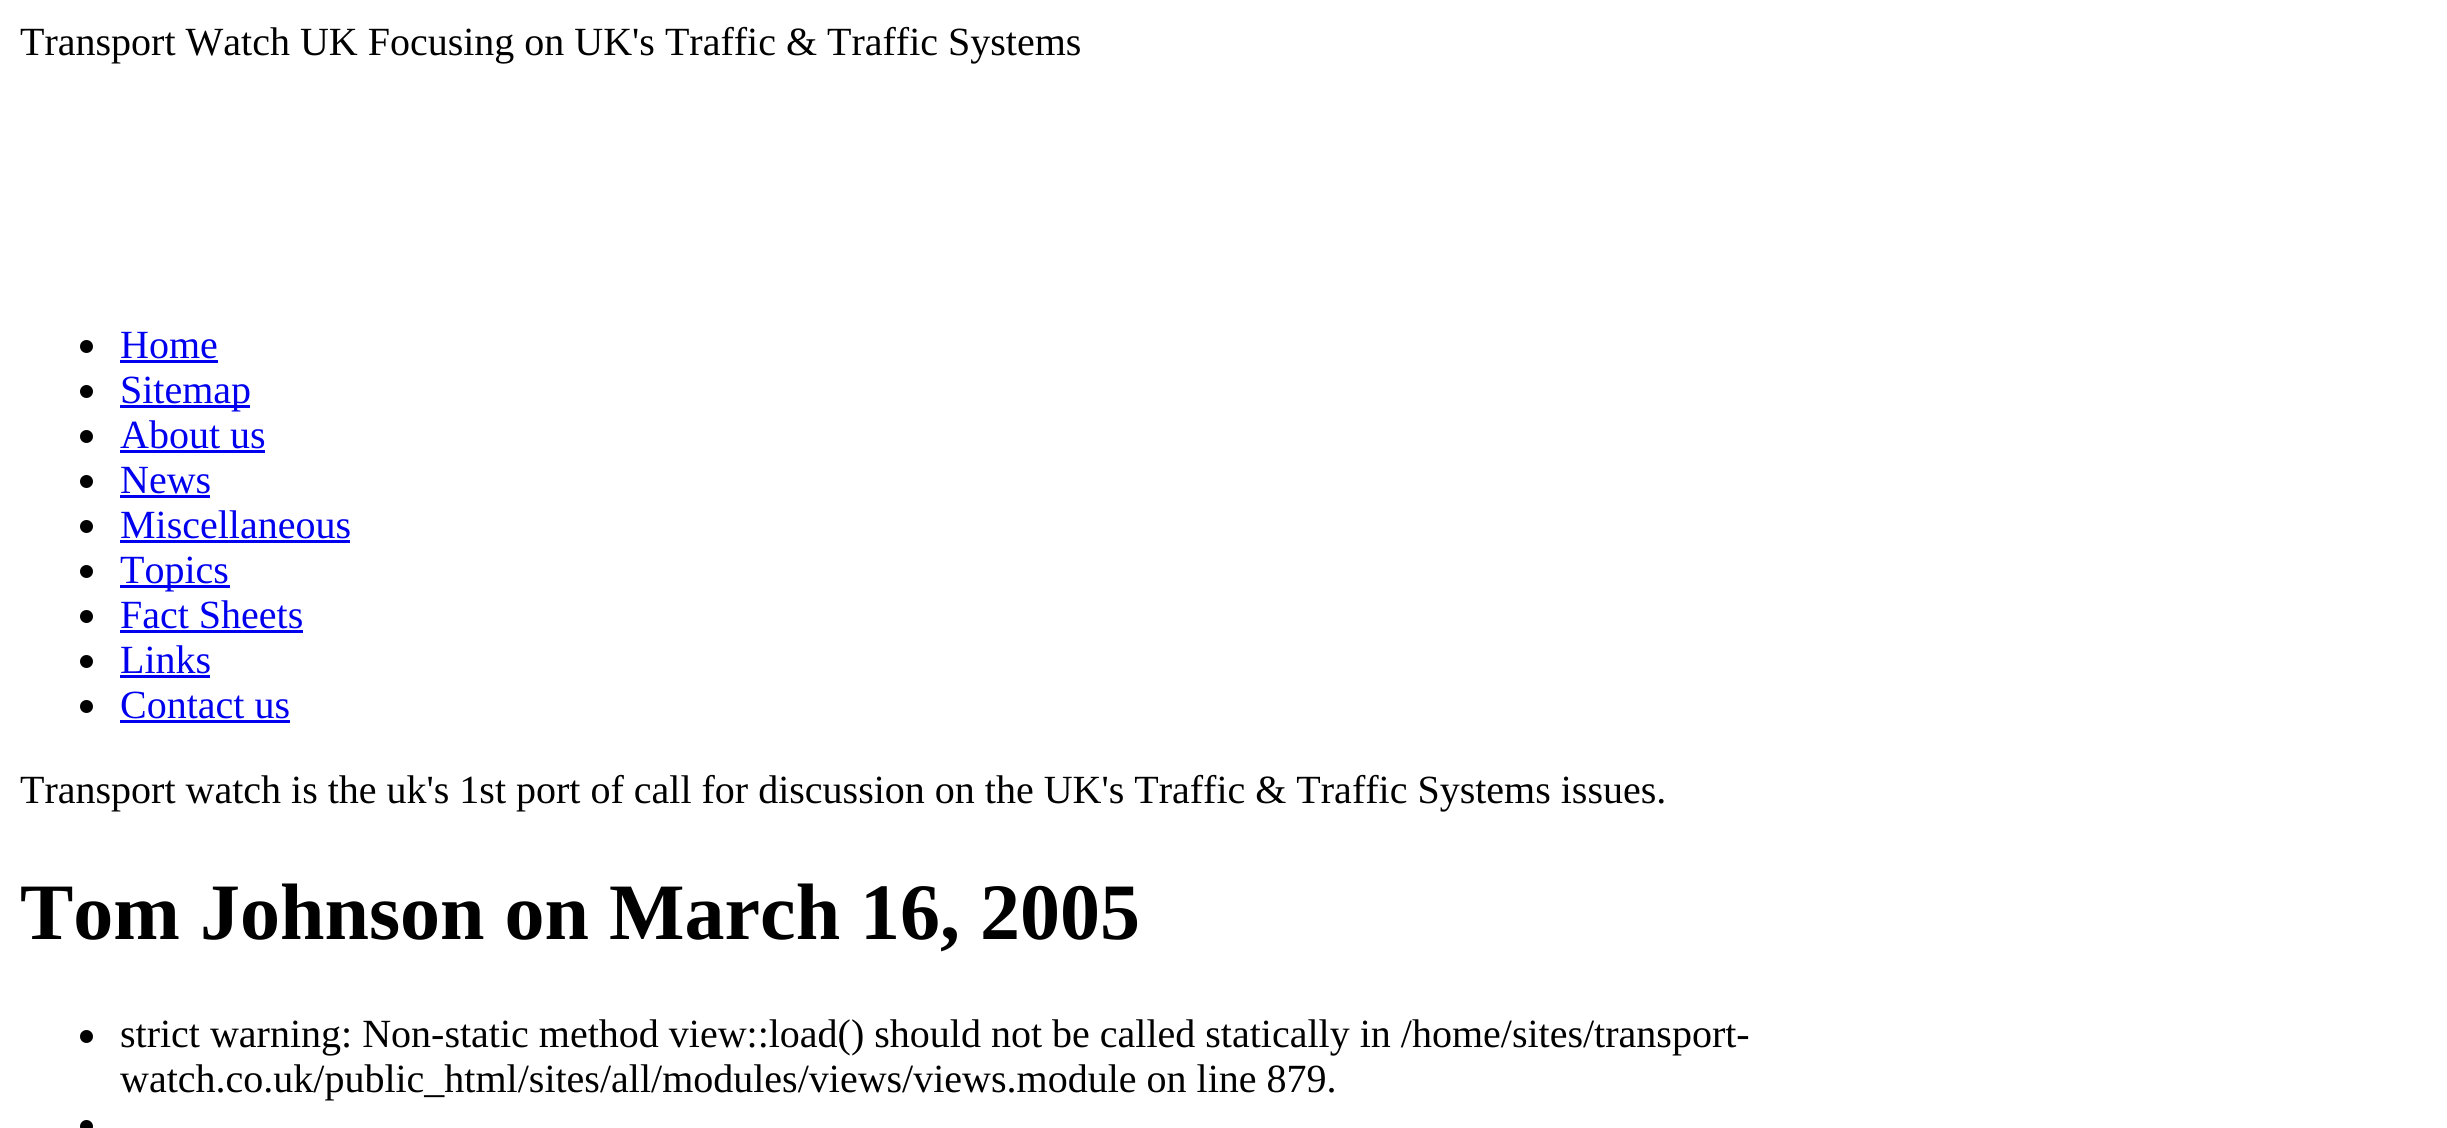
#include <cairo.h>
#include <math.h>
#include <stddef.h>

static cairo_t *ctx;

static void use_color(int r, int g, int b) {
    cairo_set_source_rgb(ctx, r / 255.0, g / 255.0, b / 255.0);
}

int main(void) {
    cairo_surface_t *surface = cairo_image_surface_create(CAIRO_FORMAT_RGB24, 2447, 1128);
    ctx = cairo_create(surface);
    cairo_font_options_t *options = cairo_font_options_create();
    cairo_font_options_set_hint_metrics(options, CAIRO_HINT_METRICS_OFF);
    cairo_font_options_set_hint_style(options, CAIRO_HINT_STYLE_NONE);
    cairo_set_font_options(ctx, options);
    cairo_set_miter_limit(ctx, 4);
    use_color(255, 255, 255);
    cairo_paint(ctx);
    cairo_select_font_face(ctx, "Liberation Serif", CAIRO_FONT_SLANT_NORMAL, CAIRO_FONT_WEIGHT_NORMAL);
    cairo_set_font_size(ctx, 40);
    use_color(0, 0, 0);
    cairo_move_to(ctx, 20, 55);
    cairo_show_text(ctx, "Transport Watch UK Focusing on UK's Traffic & Traffic Systems");
    cairo_new_path(ctx);
    cairo_arc(ctx, 86.5, 346.5, 6.5, 0, 2 * M_PI);
    cairo_fill(ctx);
    use_color(0, 0, 238);
    cairo_move_to(ctx, 120, 358);
    cairo_show_text(ctx, "Home");
    cairo_rectangle(ctx, 120, 360, 98, 3);
    cairo_fill(ctx);
    use_color(0, 0, 0);
    cairo_arc(ctx, 86.5, 391.5, 6.5, 0, 2 * M_PI);
    cairo_fill(ctx);
    use_color(0, 0, 238);
    cairo_rectangle(ctx, 120, 405, 130, 3);
    cairo_fill(ctx);
    cairo_move_to(ctx, 120, 403);
    cairo_show_text(ctx, "Sitemap");
    use_color(0, 0, 0);
    cairo_new_path(ctx);
    cairo_arc(ctx, 86.5, 436.5, 6.5, 0, 2 * M_PI);
    cairo_fill(ctx);
    use_color(0, 0, 238);
    cairo_move_to(ctx, 120, 448);
    cairo_show_text(ctx, "About us");
    cairo_rectangle(ctx, 120, 450, 145, 3);
    cairo_fill(ctx);
    use_color(0, 0, 0);
    cairo_arc(ctx, 86.5, 481.5, 6.5, 0, 2 * M_PI);
    cairo_fill(ctx);
    use_color(0, 0, 238);
    cairo_move_to(ctx, 120, 493);
    cairo_show_text(ctx, "News");
    cairo_rectangle(ctx, 120, 495, 90, 3);
    cairo_fill(ctx);
    use_color(0, 0, 0);
    cairo_arc(ctx, 86.5, 526.5, 6.5, 0, 2 * M_PI);
    cairo_fill(ctx);
    use_color(0, 0, 238);
    cairo_move_to(ctx, 120, 538);
    cairo_show_text(ctx, "Miscellaneous");
    cairo_rectangle(ctx, 120, 540, 230, 3);
    cairo_fill(ctx);
    use_color(0, 0, 0);
    cairo_arc(ctx, 86.5, 571.5, 6.5, 0, 2 * M_PI);
    cairo_fill(ctx);
    use_color(0, 0, 238);
    cairo_rectangle(ctx, 120, 585, 110, 3);
    cairo_fill(ctx);
    cairo_move_to(ctx, 120, 583);
    cairo_show_text(ctx, "Topics");
    use_color(0, 0, 0);
    cairo_new_path(ctx);
    cairo_arc(ctx, 86.5, 616.5, 6.5, 0, 2 * M_PI);
    cairo_fill(ctx);
    use_color(0, 0, 238);
    cairo_move_to(ctx, 120, 628);
    cairo_show_text(ctx, "Fact Sheets");
    cairo_rectangle(ctx, 120, 630, 183, 3);
    cairo_fill(ctx);
    use_color(0, 0, 0);
    cairo_arc(ctx, 86.5, 661.5, 6.5, 0, 2 * M_PI);
    cairo_fill(ctx);
    use_color(0, 0, 238);
    cairo_move_to(ctx, 120, 673);
    cairo_show_text(ctx, "Links");
    cairo_rectangle(ctx, 120, 675, 90, 3);
    cairo_fill(ctx);
    use_color(0, 0, 0);
    cairo_arc(ctx, 86.5, 706.5, 6.5, 0, 2 * M_PI);
    cairo_fill(ctx);
    use_color(0, 0, 238);
    cairo_move_to(ctx, 120, 718);
    cairo_show_text(ctx, "Contact us");
    cairo_rectangle(ctx, 120, 720, 170, 3);
    cairo_fill(ctx);
    use_color(0, 0, 0);
    cairo_move_to(ctx, 20, 803);
    cairo_show_text(ctx, "Transport watch is the uk's 1st port of call for discussion on the UK's Traffic & Traffic Systems issues.");
    cairo_select_font_face(ctx, "Liberation Serif", CAIRO_FONT_SLANT_NORMAL, CAIRO_FONT_WEIGHT_BOLD);
    cairo_set_font_size(ctx, 80);
    cairo_move_to(ctx, 20, 939);
    cairo_show_text(ctx, "Tom Johnson on March 16, 2005");
    cairo_new_path(ctx);
    cairo_arc(ctx, 86.5, 1036.5, 6.5, 0, 2 * M_PI);
    cairo_fill(ctx);
    cairo_select_font_face(ctx, "Liberation Serif", CAIRO_FONT_SLANT_NORMAL, CAIRO_FONT_WEIGHT_NORMAL);
    cairo_set_font_size(ctx, 40);
    cairo_move_to(ctx, 120, 1047);
    cairo_show_text(ctx, "strict warning: Non-static method view::load() should not be called statically in /home/sites/transport-");
    cairo_move_to(ctx, 120, 1092);
    cairo_show_text(ctx, "watch.co.uk/public_html/sites/all/modules/views/views.module on line 879.");
    cairo_new_path(ctx);
    cairo_arc(ctx, 86.5, 1126.5, 6.5, 0, 2 * M_PI);
    cairo_fill(ctx);
    cairo_surface_write_to_png(surface, "result.png");
    cairo_font_options_destroy(options);
    cairo_destroy(ctx);
    cairo_surface_destroy(surface);
    return 0;
}
